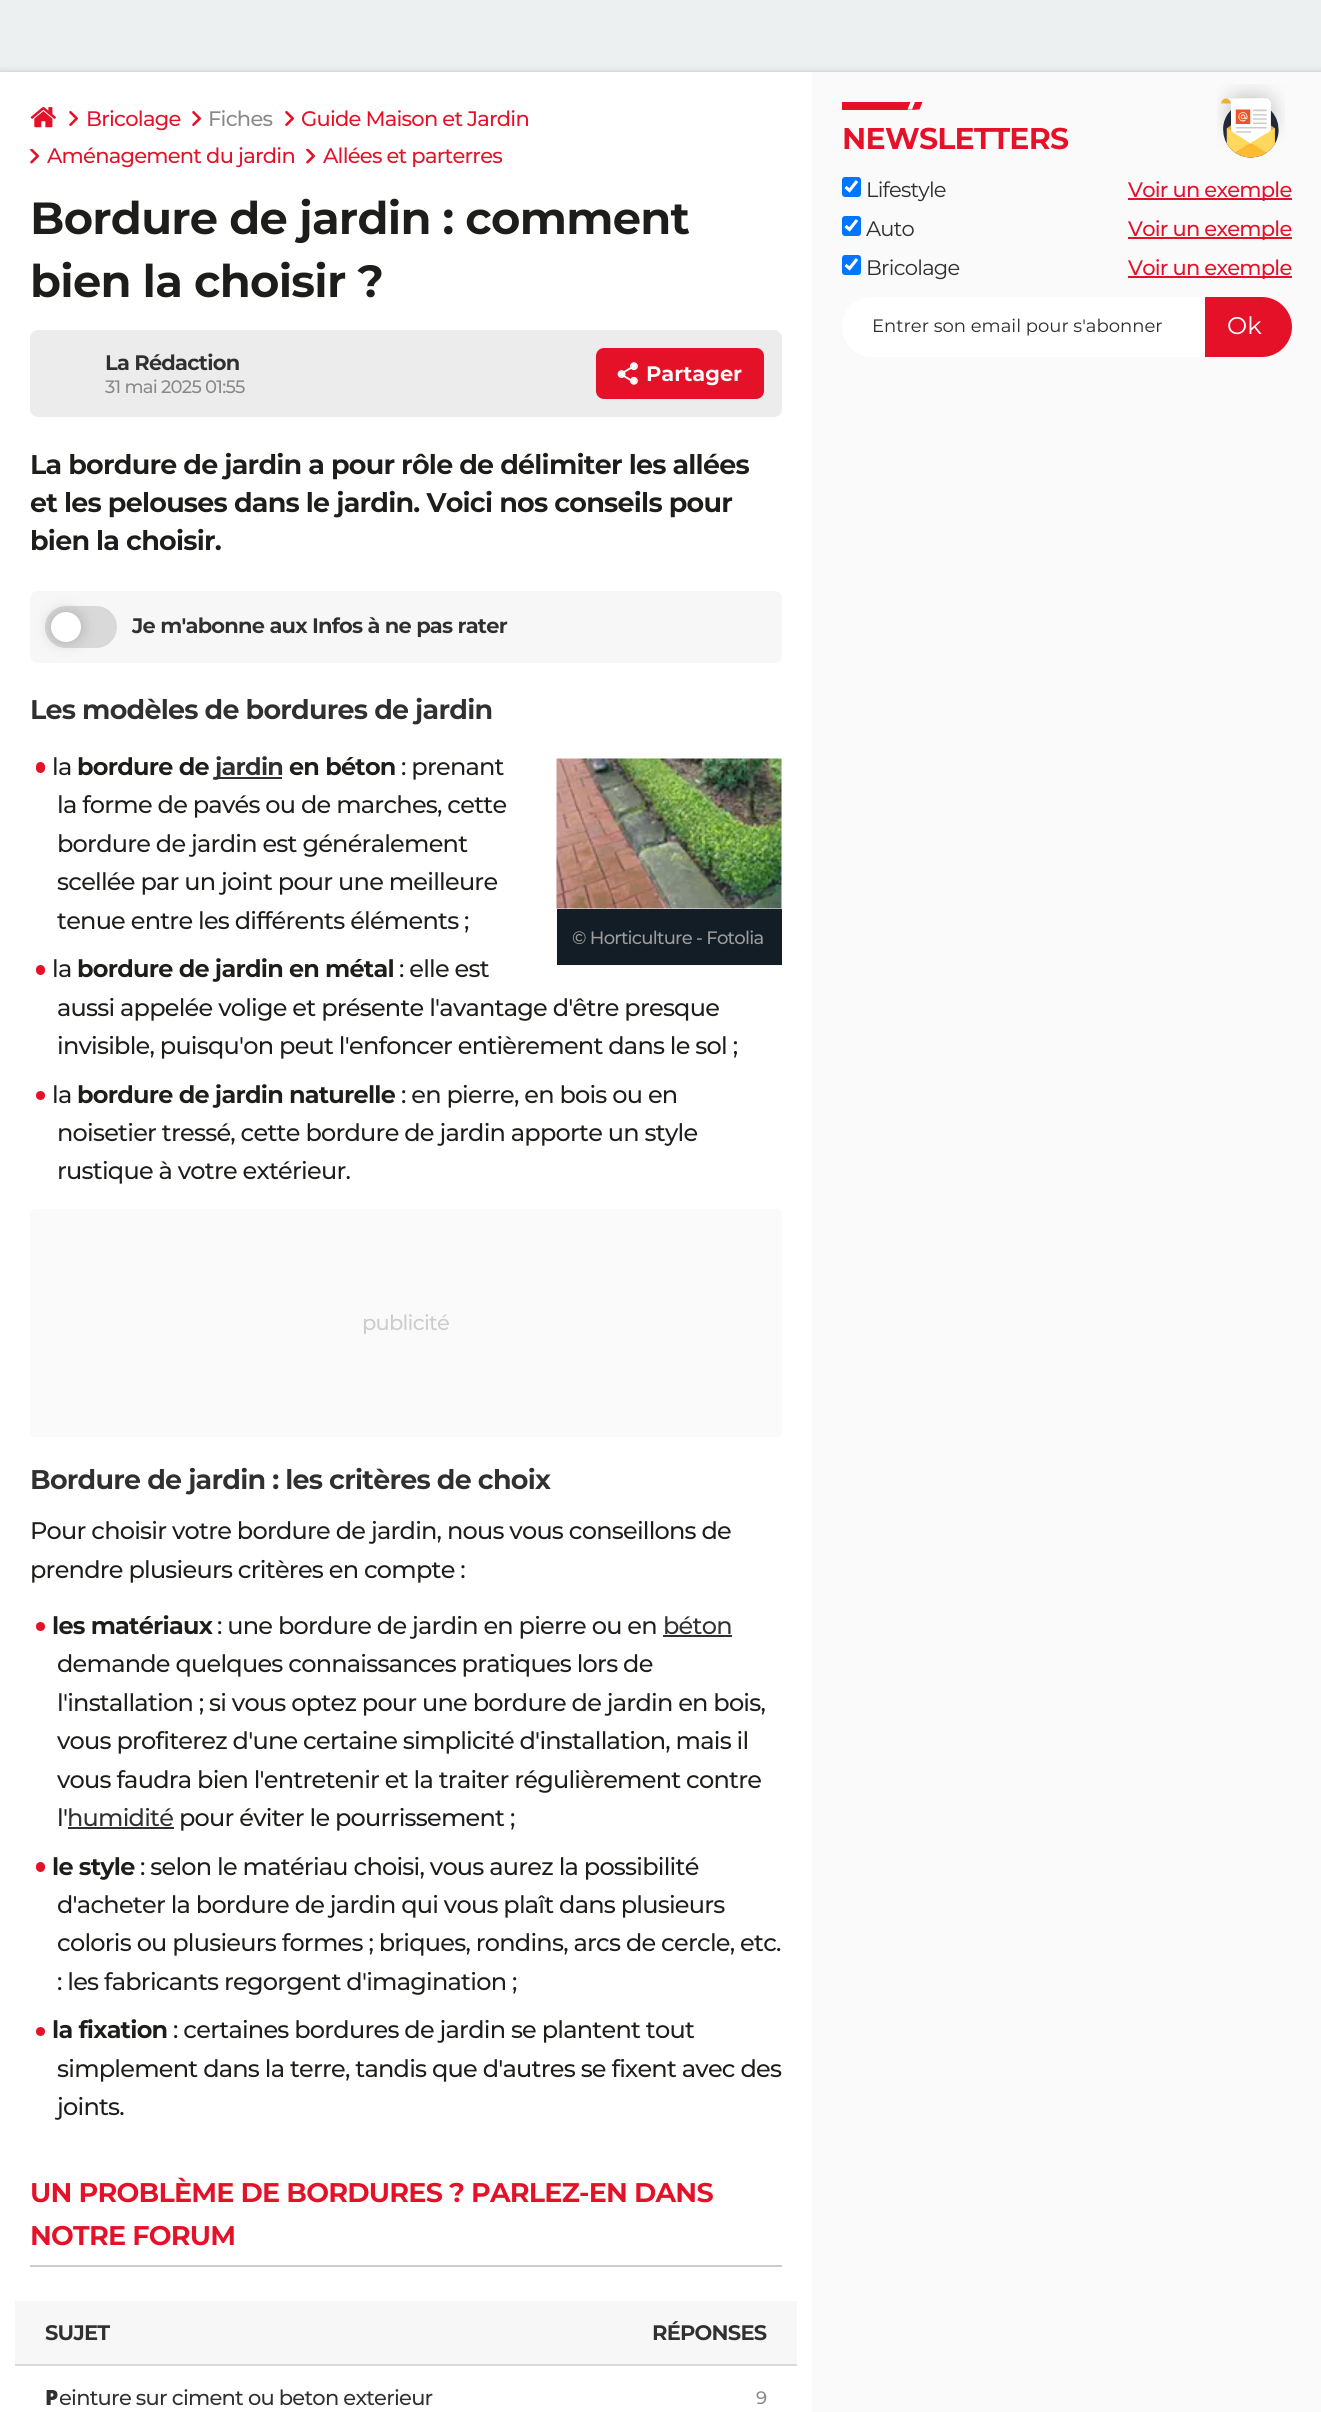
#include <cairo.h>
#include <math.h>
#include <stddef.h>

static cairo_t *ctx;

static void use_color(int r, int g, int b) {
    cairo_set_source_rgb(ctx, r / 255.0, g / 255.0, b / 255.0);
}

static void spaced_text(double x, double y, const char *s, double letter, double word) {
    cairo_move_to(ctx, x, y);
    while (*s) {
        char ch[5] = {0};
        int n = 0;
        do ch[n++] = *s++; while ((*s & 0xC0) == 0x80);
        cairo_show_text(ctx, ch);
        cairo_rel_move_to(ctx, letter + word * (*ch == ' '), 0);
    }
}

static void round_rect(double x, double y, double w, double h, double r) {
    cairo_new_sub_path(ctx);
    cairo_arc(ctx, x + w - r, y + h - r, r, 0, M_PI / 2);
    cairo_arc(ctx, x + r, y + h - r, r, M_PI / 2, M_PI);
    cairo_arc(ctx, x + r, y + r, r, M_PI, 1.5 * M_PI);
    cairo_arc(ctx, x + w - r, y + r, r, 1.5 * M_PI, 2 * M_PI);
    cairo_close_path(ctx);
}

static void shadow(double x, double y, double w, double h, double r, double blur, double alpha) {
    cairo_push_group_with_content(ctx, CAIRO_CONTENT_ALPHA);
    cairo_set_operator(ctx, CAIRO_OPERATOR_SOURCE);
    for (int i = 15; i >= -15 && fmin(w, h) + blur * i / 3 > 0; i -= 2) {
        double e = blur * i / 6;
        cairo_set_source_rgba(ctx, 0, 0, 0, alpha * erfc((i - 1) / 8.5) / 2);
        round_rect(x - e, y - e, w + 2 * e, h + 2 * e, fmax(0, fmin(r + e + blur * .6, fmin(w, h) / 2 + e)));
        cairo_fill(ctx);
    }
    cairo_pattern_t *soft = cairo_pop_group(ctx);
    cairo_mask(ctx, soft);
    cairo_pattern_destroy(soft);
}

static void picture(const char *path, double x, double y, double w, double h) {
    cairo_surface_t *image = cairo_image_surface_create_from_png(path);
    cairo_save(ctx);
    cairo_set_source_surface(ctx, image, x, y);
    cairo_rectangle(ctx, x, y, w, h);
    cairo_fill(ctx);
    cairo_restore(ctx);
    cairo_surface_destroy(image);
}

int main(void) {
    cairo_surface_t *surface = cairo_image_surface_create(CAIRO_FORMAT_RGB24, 1321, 2412);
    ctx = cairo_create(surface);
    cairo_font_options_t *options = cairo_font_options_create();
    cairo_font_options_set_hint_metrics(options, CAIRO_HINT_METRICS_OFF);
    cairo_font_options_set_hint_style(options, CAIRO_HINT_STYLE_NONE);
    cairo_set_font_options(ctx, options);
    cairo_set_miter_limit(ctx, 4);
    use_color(237, 240, 240);
    cairo_paint(ctx);
    use_color(0, 0, 0);
    shadow(0, 72, 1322, 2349, 0, 3, 0.2);
    use_color(250, 250, 250);
    cairo_rectangle(ctx, 812, 72, 509, 2340);
    cairo_fill(ctx);
    use_color(255, 255, 255);
    cairo_rectangle(ctx, 0, 72, 812, 2340);
    cairo_fill(ctx);
    picture("img1.png", 30, 107, 26, 21);
    picture("img2.png", 69, 111, 9, 15);
    cairo_select_font_face(ctx, "Montserrat Medium", CAIRO_FONT_SLANT_NORMAL, CAIRO_FONT_WEIGHT_NORMAL);
    cairo_set_font_size(ctx, 21);
    use_color(228, 17, 41);
    spaced_text(86, 126, "Bricolage", -0.75, 0);
    picture("img2.png", 192, 111, 9, 15);
    use_color(137, 137, 137);
    spaced_text(208, 126, "Fiches", -0.75, 0);
    picture("img2.png", 285, 111, 9, 15);
    use_color(228, 17, 41);
    spaced_text(301, 126, "Guide Maison et Jardin", -0.75, 0);
    picture("img3.png", 30, 149, 9, 15);
    spaced_text(47, 163, "Aménagement du jardin", -0.75, 0);
    picture("img3.png", 306, 149, 9, 15);
    spaced_text(323, 163, "Allées et parterres", -0.75, 0);
    cairo_select_font_face(ctx, "Montserrat", CAIRO_FONT_SLANT_NORMAL, CAIRO_FONT_WEIGHT_BOLD);
    cairo_set_font_size(ctx, 45);
    use_color(29, 29, 27);
    spaced_text(30, 234, "Bordure de jardin : comment", -0.75, 0);
    spaced_text(30, 297, "bien la choisir ?", -0.75, 0);
    use_color(236, 236, 236);
    round_rect(30, 330, 752, 87, 8);
    cairo_fill(ctx);
    cairo_set_font_size(ctx, 21);
    use_color(48, 48, 48);
    spaced_text(105, 370, "La Rédaction", -0.75, 0);
    cairo_select_font_face(ctx, "Montserrat Medium", CAIRO_FONT_SLANT_NORMAL, CAIRO_FONT_WEIGHT_NORMAL);
    cairo_set_font_size(ctx, 18);
    use_color(137, 137, 137);
    spaced_text(105, 393, "31 mai 2025 01:55", -0.75, 0);
    use_color(228, 17, 41);
    round_rect(597.5, 349.5, 165, 48, 6.5);
    cairo_fill_preserve(ctx);
    cairo_set_line_width(ctx, 3);
    cairo_stroke(ctx);
    picture("img4.png", 617, 362, 21, 23);
    cairo_select_font_face(ctx, "Montserrat", CAIRO_FONT_SLANT_NORMAL, CAIRO_FONT_WEIGHT_BOLD);
    cairo_set_font_size(ctx, 21);
    use_color(255, 255, 255);
    cairo_move_to(ctx, 646, 381);
    cairo_show_text(ctx, "Partager");
    cairo_set_font_size(ctx, 27);
    use_color(29, 29, 27);
    spaced_text(30, 474, "La bordure de jardin a pour rôle de délimiter les allées", -0.75, 0);
    spaced_text(30, 512, "et les pelouses dans le jardin. Voici nos conseils pour", -0.75, 0);
    spaced_text(30, 550, "bien la choisir.", -0.75, 0);
    use_color(247, 247, 247);
    round_rect(30, 591, 752, 72, 8);
    cairo_fill(ctx);
    use_color(217, 217, 217);
    round_rect(45, 606, 72, 42, 21);
    cairo_fill(ctx);
    use_color(0, 0, 0);
    shadow(51, 612, 30, 30, 15, 7.5, 0.2);
    use_color(255, 255, 255);
    cairo_arc(ctx, 66, 627, 15, 0, 2 * M_PI);
    cairo_fill(ctx);
    cairo_set_font_size(ctx, 21);
    use_color(48, 48, 48);
    spaced_text(132, 633, "Je m'abonne aux Infos à ne pas rater", -0.75, 0);
    cairo_set_font_size(ctx, 27);
    spaced_text(30, 719, "Les modèles de bordures de jardin", -0.75, 0);
    use_color(228, 17, 41);
    round_rect(36, 762, 9, 11, 4.5);
    cairo_fill(ctx);
    cairo_select_font_face(ctx, "Montserrat Medium", CAIRO_FONT_SLANT_NORMAL, CAIRO_FONT_WEIGHT_NORMAL);
    cairo_set_font_size(ctx, 24);
    use_color(29, 29, 27);
    spaced_text(52, 775, "la", -0.75, 0);
    cairo_select_font_face(ctx, "Montserrat", CAIRO_FONT_SLANT_NORMAL, CAIRO_FONT_WEIGHT_BOLD);
    spaced_text(77, 775, "bordure de", -0.75, 0);
    use_color(48, 48, 48);
    cairo_rectangle(ctx, 215, 777, 67, 2);
    cairo_fill(ctx);
    spaced_text(215, 775, "jardin", -0.75, 0);
    use_color(29, 29, 27);
    spaced_text(289, 775, "en béton", -0.75, 0);
    cairo_select_font_face(ctx, "Montserrat Medium", CAIRO_FONT_SLANT_NORMAL, CAIRO_FONT_WEIGHT_NORMAL);
    spaced_text(401, 775, ": prenant", -0.75, 0);
    spaced_text(57, 813, "la forme de pavés ou de marches, cette", -0.75, 0);
    spaced_text(57, 852, "bordure de jardin est généralement", -0.75, 0);
    spaced_text(57, 890, "scellée par un joint pour une meilleure", -0.75, 0);
    spaced_text(57, 929, "tenue entre les différents éléments ;", -0.75, 0);
    use_color(228, 17, 41);
    round_rect(36, 965, 9, 10, 4.5);
    cairo_fill(ctx);
    use_color(29, 29, 27);
    spaced_text(52, 977, "la", -0.75, 0);
    cairo_select_font_face(ctx, "Montserrat", CAIRO_FONT_SLANT_NORMAL, CAIRO_FONT_WEIGHT_BOLD);
    spaced_text(77, 977, "bordure de jardin en métal", -0.75, 0);
    cairo_select_font_face(ctx, "Montserrat Medium", CAIRO_FONT_SLANT_NORMAL, CAIRO_FONT_WEIGHT_NORMAL);
    spaced_text(399, 977, ": elle est", -0.75, 0);
    spaced_text(57, 1016, "aussi appelée volige et présente l'avantage d'être presque", -0.75, 0);
    spaced_text(57, 1054, "invisible, puisqu'on peut l'enfoncer entièrement dans le sol ;", -0.75, 0);
    use_color(228, 17, 41);
    cairo_new_path(ctx);
    cairo_arc(ctx, 40.5, 1095.5, 4.5, 0, 2 * M_PI);
    cairo_fill(ctx);
    use_color(29, 29, 27);
    spaced_text(52, 1103, "la", -0.75, 0);
    cairo_select_font_face(ctx, "Montserrat", CAIRO_FONT_SLANT_NORMAL, CAIRO_FONT_WEIGHT_BOLD);
    spaced_text(77, 1103, "bordure de jardin naturelle", -0.75, 0);
    cairo_select_font_face(ctx, "Montserrat Medium", CAIRO_FONT_SLANT_NORMAL, CAIRO_FONT_WEIGHT_NORMAL);
    spaced_text(401, 1103, ": en pierre, en bois ou en", -0.75, 0);
    spaced_text(57, 1141, "noisetier tressé, cette bordure de jardin apporte un style", -0.75, 0);
    spaced_text(57, 1179, "rustique à votre extérieur.", -0.75, 0);
    picture("img5.png", 556, 758, 226, 151);
    use_color(19, 29, 37);
    cairo_rectangle(ctx, 557, 909, 225, 56);
    cairo_fill(ctx);
    cairo_set_font_size(ctx, 18);
    use_color(158, 158, 158);
    spaced_text(572, 944, "© Horticulture - Fotolia", -0.75, 0);
    use_color(250, 250, 250);
    round_rect(30, 1209, 752, 228, 5);
    cairo_fill(ctx);
    cairo_set_font_size(ctx, 21);
    use_color(204, 204, 204);
    spaced_text(362, 1330, "publicité", -0.75, 0);
    cairo_select_font_face(ctx, "Montserrat", CAIRO_FONT_SLANT_NORMAL, CAIRO_FONT_WEIGHT_BOLD);
    cairo_set_font_size(ctx, 27);
    use_color(48, 48, 48);
    spaced_text(30, 1489, "Bordure de jardin : les critères de choix", -0.75, 0);
    cairo_select_font_face(ctx, "Montserrat Medium", CAIRO_FONT_SLANT_NORMAL, CAIRO_FONT_WEIGHT_NORMAL);
    cairo_set_font_size(ctx, 24);
    use_color(29, 29, 27);
    spaced_text(30, 1539, "Pour choisir votre bordure de jardin, nous vous conseillons de", -0.75, 0);
    spaced_text(30, 1578, "prendre plusieurs critères en compte :", -0.75, 0);
    use_color(228, 17, 41);
    cairo_new_path(ctx);
    cairo_arc(ctx, 40.5, 1626.5, 4.5, 0, 2 * M_PI);
    cairo_fill(ctx);
    cairo_select_font_face(ctx, "Montserrat", CAIRO_FONT_SLANT_NORMAL, CAIRO_FONT_WEIGHT_BOLD);
    use_color(29, 29, 27);
    spaced_text(52, 1634, "les matériaux", -0.75, 0);
    cairo_select_font_face(ctx, "Montserrat Medium", CAIRO_FONT_SLANT_NORMAL, CAIRO_FONT_WEIGHT_NORMAL);
    spaced_text(217, 1634, ": une bordure de jardin en pierre ou en", -0.75, 0);
    use_color(48, 48, 48);
    spaced_text(663, 1634, "béton", -0.75, 0);
    cairo_rectangle(ctx, 663, 1635, 69, 2);
    cairo_fill(ctx);
    use_color(29, 29, 27);
    spaced_text(57, 1672, "demande quelques connaissances pratiques lors de", -0.75, 0);
    spaced_text(57, 1711, "l'installation ; si vous optez pour une bordure de jardin en bois,", -0.75, 0);
    spaced_text(57, 1749, "vous profiterez d'une certaine simplicité d'installation, mais il", -0.75, 0);
    spaced_text(57, 1788, "vous faudra bien l'entretenir et la traiter régulièrement contre", -0.75, 0);
    spaced_text(57, 1826, "l'", -0.75, 0);
    use_color(48, 48, 48);
    spaced_text(67, 1826, "humidité", -0.75, 0);
    cairo_rectangle(ctx, 68, 1827, 106, 2);
    cairo_fill(ctx);
    use_color(29, 29, 27);
    spaced_text(179, 1826, "pour éviter le pourrissement ;", -0.75, 0);
    use_color(228, 17, 41);
    round_rect(36, 1862, 9, 10, 4.5);
    cairo_fill(ctx);
    cairo_select_font_face(ctx, "Montserrat", CAIRO_FONT_SLANT_NORMAL, CAIRO_FONT_WEIGHT_BOLD);
    use_color(29, 29, 27);
    spaced_text(52, 1875, "le style", -0.75, 0);
    cairo_select_font_face(ctx, "Montserrat Medium", CAIRO_FONT_SLANT_NORMAL, CAIRO_FONT_WEIGHT_NORMAL);
    spaced_text(140, 1875, ": selon le matériau choisi, vous aurez la possibilité", -0.75, 0);
    spaced_text(57, 1913, "d'acheter la bordure de jardin qui vous plaît dans plusieurs", -0.75, 0);
    spaced_text(57, 1951, "coloris ou plusieurs formes ; briques, rondins, arcs de cercle, etc.", -0.75, 0);
    spaced_text(57, 1990, ": les fabricants regorgent d'imagination ;", -0.75, 0);
    use_color(228, 17, 41);
    cairo_new_path(ctx);
    cairo_arc(ctx, 40.5, 2031.5, 4.5, 0, 2 * M_PI);
    cairo_fill(ctx);
    cairo_select_font_face(ctx, "Montserrat", CAIRO_FONT_SLANT_NORMAL, CAIRO_FONT_WEIGHT_BOLD);
    use_color(29, 29, 27);
    spaced_text(52, 2038, "la fixation", -0.75, 0);
    cairo_select_font_face(ctx, "Montserrat Medium", CAIRO_FONT_SLANT_NORMAL, CAIRO_FONT_WEIGHT_NORMAL);
    spaced_text(173, 2038, ": certaines bordures de jardin se plantent tout", -0.75, 0);
    spaced_text(57, 2077, "simplement dans la terre, tandis que d'autres se fixent avec des", -0.75, 0);
    spaced_text(57, 2115, "joints.", -0.75, 0);
    use_color(204, 204, 204);
    cairo_rectangle(ctx, 30, 2265, 752, 2);
    cairo_fill(ctx);
    cairo_select_font_face(ctx, "Montserrat", CAIRO_FONT_SLANT_NORMAL, CAIRO_FONT_WEIGHT_BOLD);
    cairo_set_font_size(ctx, 27);
    use_color(228, 17, 41);
    spaced_text(30, 2202, "UN PROBLÈME DE BORDURES ? PARLEZ-EN DANS", -0.75, 0);
    spaced_text(30, 2245, "NOTRE FORUM", -0.75, 0);
    use_color(247, 247, 247);
    cairo_rectangle(ctx, 15, 2301, 782, 63);
    cairo_fill(ctx);
    use_color(217, 217, 217);
    cairo_rectangle(ctx, 15, 2364, 782, 2);
    cairo_fill(ctx);
    cairo_set_font_size(ctx, 21);
    use_color(48, 48, 48);
    spaced_text(45, 2340, "SUJET", -0.75, 0);
    spaced_text(652, 2340, "RÉPONSES", -0.75, 0);
    cairo_select_font_face(ctx, "Noto Sans Black", CAIRO_FONT_SLANT_NORMAL, CAIRO_FONT_WEIGHT_NORMAL);
    spaced_text(45, 2405, "P", -0.75, 0);
    cairo_select_font_face(ctx, "Montserrat Medium", CAIRO_FONT_SLANT_NORMAL, CAIRO_FONT_WEIGHT_NORMAL);
    spaced_text(59, 2405, "einture sur ciment ou beton exterieur", -0.75, 0);
    cairo_set_font_size(ctx, 18);
    use_color(137, 137, 137);
    spaced_text(756, 2404, "9", -0.75, 0);
    use_color(228, 17, 41);
    cairo_rectangle(ctx, 842, 102, 75, 8);
    cairo_fill(ctx);
    use_color(255, 255, 255);
    cairo_new_path(ctx);
    cairo_move_to(ctx, 910.5, 102);
    cairo_line_to(ctx, 922.5, 102);
    cairo_line_to(ctx, 919.5, 109.5);
    cairo_line_to(ctx, 907.5, 109.5);
    cairo_close_path(ctx);
    cairo_fill(ctx);
    use_color(228, 17, 41);
    cairo_new_path(ctx);
    cairo_move_to(ctx, 915, 102);
    cairo_line_to(ctx, 922.5, 102);
    cairo_line_to(ctx, 919.5, 109.5);
    cairo_line_to(ctx, 912, 109.5);
    cairo_close_path(ctx);
    cairo_fill(ctx);
    cairo_select_font_face(ctx, "Montserrat", CAIRO_FONT_SLANT_NORMAL, CAIRO_FONT_WEIGHT_BOLD);
    cairo_set_font_size(ctx, 30);
    spaced_text(842, 149, "NEWSLETTERS", -0.75, 0);
    picture("img6.png", 1217, 84, 68, 74);
    use_color(0, 117, 255);
    round_rect(842, 177, 19, 20, 3);
    cairo_fill(ctx);
    cairo_new_path(ctx);
    cairo_move_to(ctx, 845.5, 187);
    cairo_line_to(ctx, 849.5, 190.5);
    cairo_line_to(ctx, 857, 181);
    use_color(255, 255, 255);
    cairo_set_line_width(ctx, 3.1);
    cairo_stroke(ctx);
    cairo_select_font_face(ctx, "Montserrat", CAIRO_FONT_SLANT_NORMAL, CAIRO_FONT_WEIGHT_NORMAL);
    cairo_set_font_size(ctx, 21);
    use_color(48, 48, 48);
    spaced_text(866, 197, "Lifestyle", -0.75, 0);
    use_color(228, 17, 41);
    cairo_rectangle(ctx, 1128, 198, 164, 2);
    cairo_fill(ctx);
    cairo_select_font_face(ctx, "Montserrat Medium", CAIRO_FONT_SLANT_NORMAL, CAIRO_FONT_WEIGHT_NORMAL);
    spaced_text(1128, 197, "Voir un exemple", -0.75, 0);
    use_color(0, 117, 255);
    round_rect(842, 216, 19, 20, 3);
    cairo_fill(ctx);
    cairo_new_path(ctx);
    cairo_move_to(ctx, 845.5, 226);
    cairo_line_to(ctx, 849.5, 229.5);
    cairo_line_to(ctx, 857, 220);
    use_color(255, 255, 255);
    cairo_stroke(ctx);
    cairo_select_font_face(ctx, "Montserrat", CAIRO_FONT_SLANT_NORMAL, CAIRO_FONT_WEIGHT_NORMAL);
    use_color(48, 48, 48);
    spaced_text(866, 236, "Auto", -0.75, 0);
    use_color(228, 17, 41);
    cairo_rectangle(ctx, 1128, 237, 164, 2);
    cairo_fill(ctx);
    cairo_select_font_face(ctx, "Montserrat Medium", CAIRO_FONT_SLANT_NORMAL, CAIRO_FONT_WEIGHT_NORMAL);
    spaced_text(1128, 236, "Voir un exemple", -0.75, 0);
    use_color(0, 117, 255);
    round_rect(842, 255, 19, 20, 3);
    cairo_fill(ctx);
    cairo_new_path(ctx);
    cairo_move_to(ctx, 845.5, 265);
    cairo_line_to(ctx, 849.5, 268.5);
    cairo_line_to(ctx, 857, 259);
    use_color(255, 255, 255);
    cairo_stroke(ctx);
    cairo_select_font_face(ctx, "Montserrat", CAIRO_FONT_SLANT_NORMAL, CAIRO_FONT_WEIGHT_NORMAL);
    use_color(48, 48, 48);
    spaced_text(866, 275, "Bricolage", -0.75, 0);
    use_color(228, 17, 41);
    cairo_rectangle(ctx, 1128, 276, 164, 2);
    cairo_fill(ctx);
    cairo_select_font_face(ctx, "Montserrat Medium", CAIRO_FONT_SLANT_NORMAL, CAIRO_FONT_WEIGHT_NORMAL);
    spaced_text(1128, 275, "Voir un exemple", -0.75, 0);
    use_color(255, 255, 255);
    round_rect(842, 297, 450, 60, 30);
    cairo_fill(ctx);
    cairo_select_font_face(ctx, "Montserrat", CAIRO_FONT_SLANT_NORMAL, CAIRO_FONT_WEIGHT_NORMAL);
    cairo_set_font_size(ctx, 18);
    use_color(48, 48, 48);
    cairo_move_to(ctx, 872, 332);
    cairo_show_text(ctx, "Entrer son email pour s'abonner");
    use_color(228, 17, 41);
    cairo_new_path(ctx);
    cairo_move_to(ctx, 1206.5, 298.5);
    cairo_line_to(ctx, 1262, 298.5);
    cairo_curve_to(ctx, 1277.5, 298.5, 1290.5, 311.5, 1290.5, 327);
    cairo_curve_to(ctx, 1290.5, 342.5, 1277.5, 355.5, 1262, 355.5);
    cairo_line_to(ctx, 1206.5, 355.5);
    cairo_close_path(ctx);
    cairo_fill_preserve(ctx);
    cairo_set_line_width(ctx, 3);
    cairo_stroke(ctx);
    cairo_set_font_size(ctx, 24);
    use_color(255, 255, 255);
    cairo_move_to(ctx, 1227, 334);
    cairo_show_text(ctx, "Ok");
    cairo_surface_write_to_png(surface, "result.png");
    cairo_font_options_destroy(options);
    cairo_destroy(ctx);
    cairo_surface_destroy(surface);
    return 0;
}
